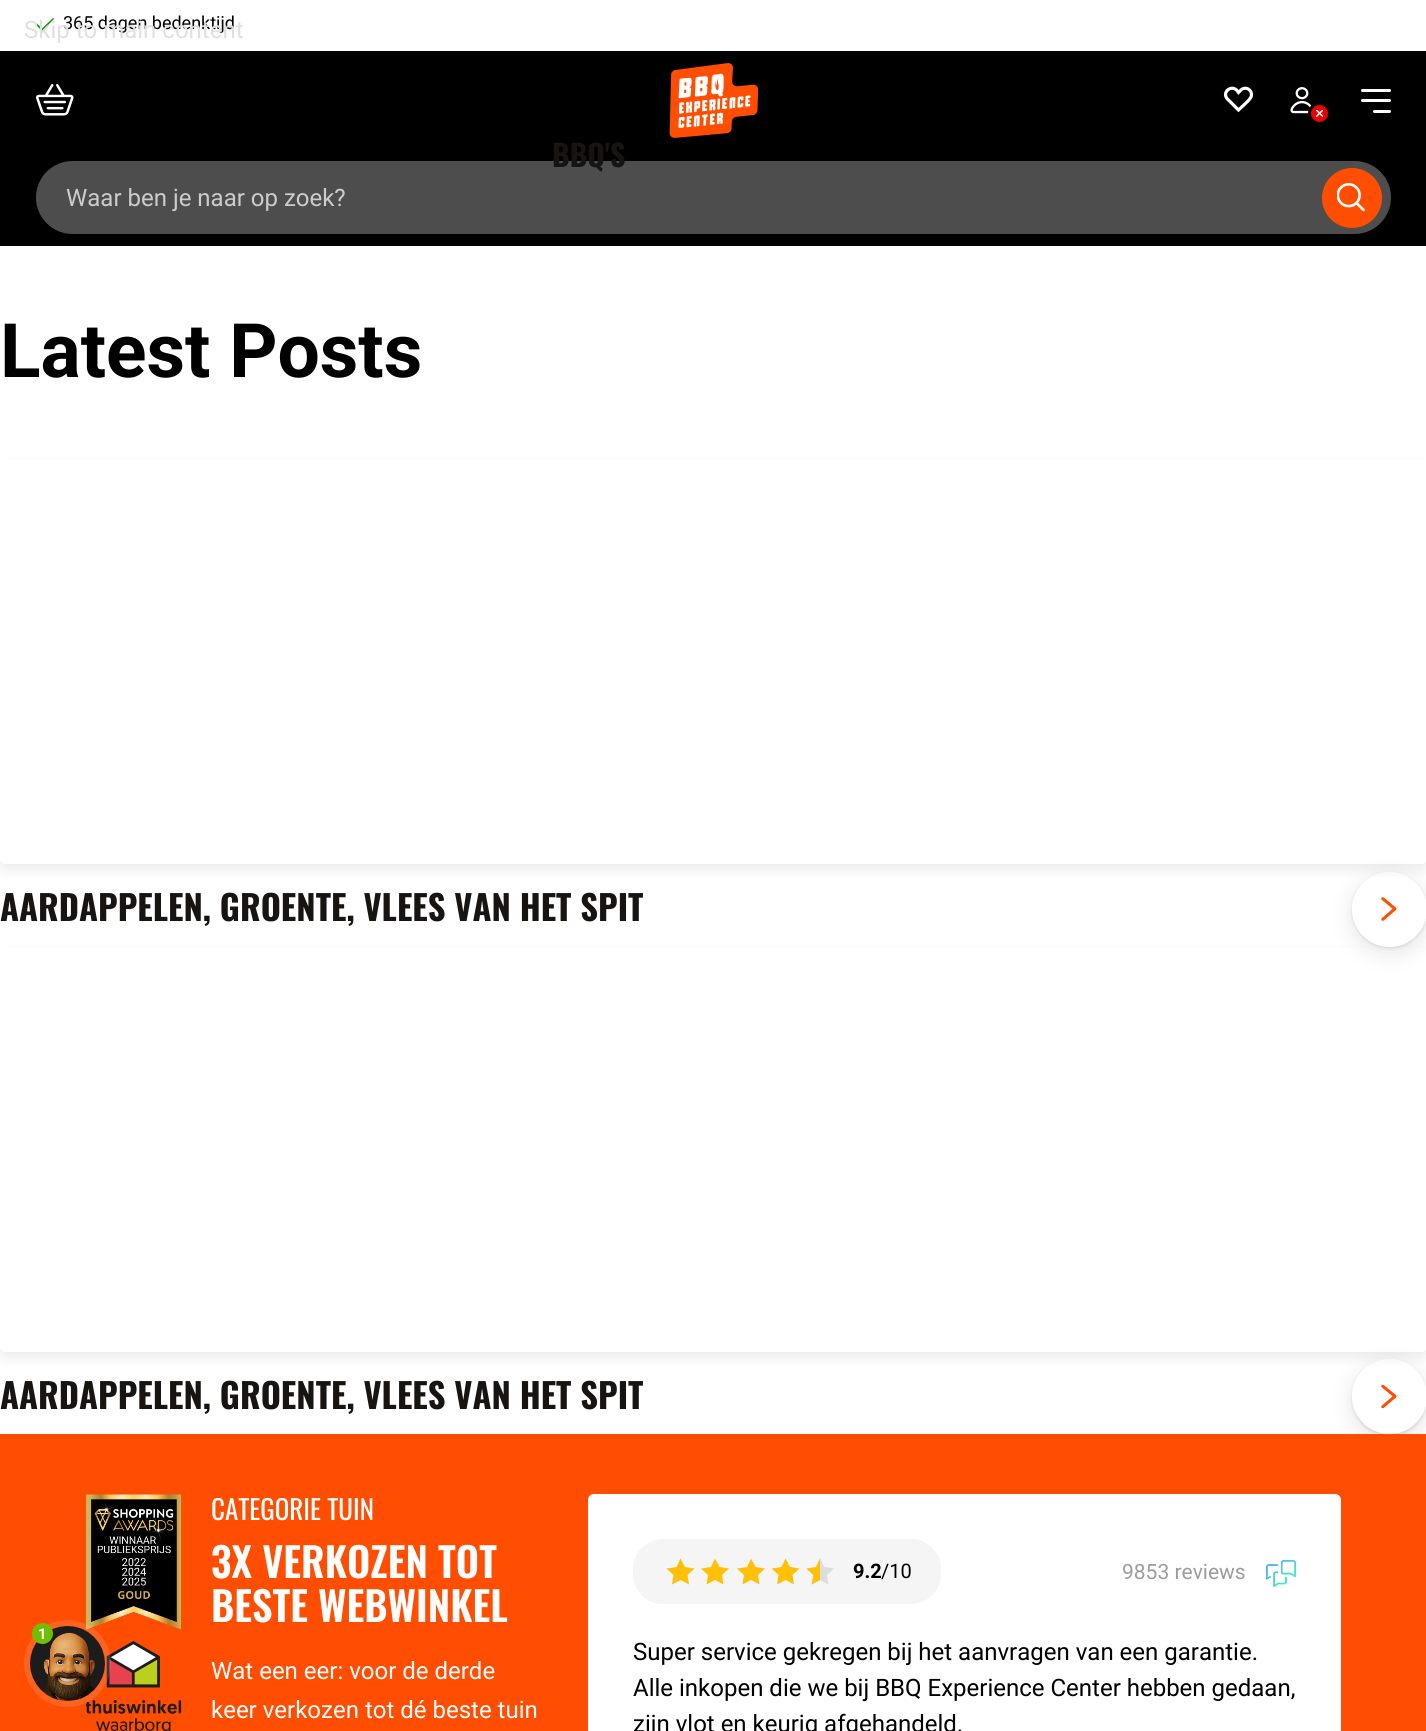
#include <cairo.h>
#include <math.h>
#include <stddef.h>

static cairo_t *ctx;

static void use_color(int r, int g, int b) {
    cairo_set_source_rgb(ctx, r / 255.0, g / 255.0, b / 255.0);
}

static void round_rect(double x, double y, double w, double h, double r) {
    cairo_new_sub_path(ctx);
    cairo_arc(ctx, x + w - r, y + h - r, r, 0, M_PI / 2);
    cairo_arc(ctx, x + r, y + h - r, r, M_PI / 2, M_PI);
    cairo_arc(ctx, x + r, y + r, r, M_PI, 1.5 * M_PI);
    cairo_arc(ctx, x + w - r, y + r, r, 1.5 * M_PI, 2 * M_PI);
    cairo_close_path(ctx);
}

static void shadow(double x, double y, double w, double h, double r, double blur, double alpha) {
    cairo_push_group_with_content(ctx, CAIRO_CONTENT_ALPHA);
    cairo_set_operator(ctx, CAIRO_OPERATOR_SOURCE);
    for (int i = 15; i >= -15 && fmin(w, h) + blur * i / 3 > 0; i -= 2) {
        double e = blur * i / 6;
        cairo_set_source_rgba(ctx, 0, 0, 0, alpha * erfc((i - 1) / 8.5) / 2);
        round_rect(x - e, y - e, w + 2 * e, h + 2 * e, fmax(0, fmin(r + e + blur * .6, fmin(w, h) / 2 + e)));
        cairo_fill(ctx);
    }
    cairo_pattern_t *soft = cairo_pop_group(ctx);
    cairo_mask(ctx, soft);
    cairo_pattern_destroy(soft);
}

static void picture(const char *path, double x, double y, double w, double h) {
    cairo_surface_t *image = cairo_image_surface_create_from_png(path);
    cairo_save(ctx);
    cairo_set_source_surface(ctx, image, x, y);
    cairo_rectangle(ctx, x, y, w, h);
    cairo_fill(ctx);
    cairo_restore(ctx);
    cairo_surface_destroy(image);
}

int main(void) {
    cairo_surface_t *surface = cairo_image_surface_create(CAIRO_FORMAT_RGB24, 1426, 1731);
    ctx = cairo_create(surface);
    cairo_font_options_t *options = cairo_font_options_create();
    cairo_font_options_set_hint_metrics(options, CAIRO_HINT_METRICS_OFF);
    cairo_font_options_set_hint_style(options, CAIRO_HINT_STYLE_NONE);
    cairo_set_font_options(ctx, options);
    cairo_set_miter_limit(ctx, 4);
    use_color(255, 255, 255);
    cairo_paint(ctx);
    use_color(14, 147, 5);
    cairo_new_path(ctx);
    cairo_move_to(ctx, 42, 31);
    cairo_line_to(ctx, 36, 25);
    cairo_line_to(ctx, 37, 23.5);
    cairo_line_to(ctx, 42, 28.5);
    cairo_line_to(ctx, 53, 18);
    cairo_line_to(ctx, 54, 19);
    cairo_close_path(ctx);
    cairo_fill(ctx);
    cairo_select_font_face(ctx, "Roboto", CAIRO_FONT_SLANT_NORMAL, CAIRO_FONT_WEIGHT_NORMAL);
    cairo_set_font_size(ctx, 18);
    use_color(0, 0, 0);
    cairo_move_to(ctx, 63, 29);
    cairo_show_text(ctx, "365 dagen bedenktijd");
    cairo_rectangle(ctx, 0, 51, 1426, 195);
    cairo_fill(ctx);
    picture("img1.png", 669, 63, 89, 75);
    picture("img2.png", 36, 84, 38, 32);
    cairo_new_path(ctx);
    cairo_move_to(ctx, 1227.5, 99);
    cairo_line_to(ctx, 1238.5, 110);
    cairo_line_to(ctx, 1246.5, 102.5);
    cairo_curve_to(ctx, 1248, 101, 1250, 99, 1251, 97);
    cairo_curve_to(ctx, 1253, 92, 1248.5, 87, 1243.5, 88.5);
    cairo_curve_to(ctx, 1241.5, 89, 1240, 91, 1238.5, 92.5);
    cairo_line_to(ctx, 1236.5, 90);
    cairo_curve_to(ctx, 1230.5, 84.5, 1221.5, 93, 1227.5, 99);
    cairo_close_path(ctx);
    use_color(255, 255, 255);
    cairo_set_line_width(ctx, 3.2);
    cairo_stroke(ctx);
    picture("img3.png", 1290, 87, 22, 27);
    use_color(233, 2, 2);
    cairo_arc(ctx, 1319.5, 113.5, 10, 0, 2 * M_PI);
    cairo_fill_preserve(ctx);
    use_color(0, 0, 0);
    cairo_set_line_width(ctx, 3);
    cairo_stroke(ctx);
    picture("img4.png", 1316, 110, 7, 7);
    use_color(255, 255, 255);
    round_rect(1361, 99, 30, 3, 1.5);
    cairo_fill(ctx);
    round_rect(1361, 89, 30, 3, 1.5);
    cairo_fill(ctx);
    round_rect(1373, 110, 18, 3, 1.5);
    cairo_fill(ctx);
    use_color(77, 77, 77);
    round_rect(36, 161, 1355, 73, 36.5);
    cairo_fill(ctx);
    cairo_set_font_size(ctx, 24);
    use_color(204, 204, 204);
    cairo_move_to(ctx, 66, 206);
    cairo_show_text(ctx, "Waar ben je naar op zoek?");
    use_color(255, 78, 2);
    cairo_new_path(ctx);
    cairo_arc(ctx, 1352, 198, 30, 0, 2 * M_PI);
    cairo_fill(ctx);
    picture("img5.png", 1337, 183, 28, 29);
    cairo_select_font_face(ctx, "Oswald", CAIRO_FONT_SLANT_NORMAL, CAIRO_FONT_WEIGHT_BOLD);
    cairo_set_font_size(ctx, 30);
    use_color(24, 20, 18);
    cairo_move_to(ctx, 552, 167);
    cairo_show_text(ctx, "BBQ'S");
    cairo_select_font_face(ctx, "Roboto", CAIRO_FONT_SLANT_NORMAL, CAIRO_FONT_WEIGHT_BOLD);
    cairo_set_font_size(ctx, 75);
    use_color(0, 0, 0);
    cairo_move_to(ctx, 0, 377);
    cairo_show_text(ctx, "Latest Posts");
    cairo_save(ctx);
    cairo_set_fill_rule(ctx, CAIRO_FILL_RULE_EVEN_ODD);
    cairo_new_path(ctx);
    cairo_move_to(ctx, 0, 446);
    cairo_line_to(ctx, 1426, 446);
    cairo_line_to(ctx, 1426, 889);
    cairo_line_to(ctx, 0, 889);
    cairo_close_path(ctx);
    cairo_move_to(ctx, 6, 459);
    cairo_line_to(ctx, 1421, 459);
    cairo_curve_to(ctx, 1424.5, 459, 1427, 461.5, 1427, 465);
    cairo_line_to(ctx, 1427, 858);
    cairo_curve_to(ctx, 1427, 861.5, 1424.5, 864, 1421, 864);
    cairo_line_to(ctx, 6, 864);
    cairo_curve_to(ctx, 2.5, 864, 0, 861.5, 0, 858);
    cairo_line_to(ctx, 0, 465);
    cairo_curve_to(ctx, 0, 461.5, 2.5, 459, 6, 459);
    cairo_close_path(ctx);
    cairo_clip(ctx);
    use_color(0, 0, 0);
    shadow(0, 465, 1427, 405, 6, 6, 0.08);
    cairo_restore(ctx);
    cairo_select_font_face(ctx, "Oswald", CAIRO_FONT_SLANT_NORMAL, CAIRO_FONT_WEIGHT_BOLD);
    cairo_set_font_size(ctx, 34.5);
    use_color(24, 20, 18);
    cairo_move_to(ctx, 0, 921);
    cairo_show_text(ctx, "AARDAPPELEN, GROENTE, VLEES VAN HET SPIT");
    cairo_save(ctx);
    cairo_set_fill_rule(ctx, CAIRO_FILL_RULE_EVEN_ODD);
    cairo_new_path(ctx);
    cairo_move_to(ctx, 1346, 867);
    cairo_line_to(ctx, 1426, 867);
    cairo_line_to(ctx, 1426, 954);
    cairo_line_to(ctx, 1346, 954);
    cairo_close_path(ctx);
    cairo_move_to(ctx, 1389.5, 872);
    cairo_curve_to(ctx, 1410, 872, 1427, 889, 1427, 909.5);
    cairo_curve_to(ctx, 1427, 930, 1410, 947, 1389.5, 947);
    cairo_curve_to(ctx, 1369, 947, 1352, 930, 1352, 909.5);
    cairo_curve_to(ctx, 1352, 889, 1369, 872, 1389.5, 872);
    cairo_close_path(ctx);
    cairo_clip(ctx);
    use_color(0, 0, 0);
    shadow(1352, 873, 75, 75, 37.5, 1.5, 0.1);
    cairo_restore(ctx);
    cairo_save(ctx);
    cairo_set_fill_rule(ctx, CAIRO_FILL_RULE_EVEN_ODD);
    cairo_new_path(ctx);
    cairo_move_to(ctx, 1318, 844);
    cairo_line_to(ctx, 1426, 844);
    cairo_line_to(ctx, 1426, 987);
    cairo_line_to(ctx, 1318, 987);
    cairo_close_path(ctx);
    cairo_move_to(ctx, 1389.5, 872);
    cairo_curve_to(ctx, 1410, 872, 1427, 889, 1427, 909.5);
    cairo_curve_to(ctx, 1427, 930, 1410, 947, 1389.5, 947);
    cairo_curve_to(ctx, 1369, 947, 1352, 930, 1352, 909.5);
    cairo_curve_to(ctx, 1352, 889, 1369, 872, 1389.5, 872);
    cairo_close_path(ctx);
    cairo_clip(ctx);
    use_color(0, 0, 0);
    shadow(1352, 878, 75, 75, 37.5, 11, 0.1);
    cairo_restore(ctx);
    picture("img6.png", 1381, 897, 16, 24);
    cairo_save(ctx);
    cairo_set_fill_rule(ctx, CAIRO_FILL_RULE_EVEN_ODD);
    cairo_new_path(ctx);
    cairo_move_to(ctx, 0, 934);
    cairo_line_to(ctx, 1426, 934);
    cairo_line_to(ctx, 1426, 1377);
    cairo_line_to(ctx, 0, 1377);
    cairo_close_path(ctx);
    cairo_move_to(ctx, 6, 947);
    cairo_line_to(ctx, 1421, 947);
    cairo_curve_to(ctx, 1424.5, 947, 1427, 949.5, 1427, 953);
    cairo_line_to(ctx, 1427, 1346);
    cairo_curve_to(ctx, 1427, 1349.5, 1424.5, 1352, 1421, 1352);
    cairo_line_to(ctx, 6, 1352);
    cairo_curve_to(ctx, 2.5, 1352, 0, 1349.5, 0, 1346);
    cairo_line_to(ctx, 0, 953);
    cairo_curve_to(ctx, 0, 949.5, 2.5, 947, 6, 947);
    cairo_close_path(ctx);
    cairo_clip(ctx);
    use_color(0, 0, 0);
    shadow(0, 953, 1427, 405, 6, 6, 0.08);
    cairo_restore(ctx);
    cairo_move_to(ctx, 0, 1409);
    cairo_show_text(ctx, "AARDAPPELEN, GROENTE, VLEES VAN HET SPIT");
    cairo_save(ctx);
    cairo_set_fill_rule(ctx, CAIRO_FILL_RULE_EVEN_ODD);
    cairo_new_path(ctx);
    cairo_move_to(ctx, 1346, 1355);
    cairo_line_to(ctx, 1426, 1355);
    cairo_line_to(ctx, 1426, 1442);
    cairo_line_to(ctx, 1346, 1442);
    cairo_close_path(ctx);
    cairo_move_to(ctx, 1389.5, 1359);
    cairo_curve_to(ctx, 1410, 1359, 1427, 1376, 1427, 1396.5);
    cairo_curve_to(ctx, 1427, 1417, 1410, 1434, 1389.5, 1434);
    cairo_curve_to(ctx, 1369, 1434, 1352, 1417, 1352, 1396.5);
    cairo_curve_to(ctx, 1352, 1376, 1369, 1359, 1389.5, 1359);
    cairo_close_path(ctx);
    cairo_clip(ctx);
    use_color(0, 0, 0);
    shadow(1352, 1361, 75, 75, 37.5, 1.5, 0.1);
    cairo_restore(ctx);
    cairo_save(ctx);
    cairo_set_fill_rule(ctx, CAIRO_FILL_RULE_EVEN_ODD);
    cairo_new_path(ctx);
    cairo_move_to(ctx, 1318, 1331);
    cairo_line_to(ctx, 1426, 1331);
    cairo_line_to(ctx, 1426, 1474);
    cairo_line_to(ctx, 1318, 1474);
    cairo_close_path(ctx);
    cairo_move_to(ctx, 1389.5, 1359);
    cairo_curve_to(ctx, 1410, 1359, 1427, 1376, 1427, 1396.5);
    cairo_curve_to(ctx, 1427, 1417, 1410, 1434, 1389.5, 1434);
    cairo_curve_to(ctx, 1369, 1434, 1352, 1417, 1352, 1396.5);
    cairo_curve_to(ctx, 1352, 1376, 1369, 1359, 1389.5, 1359);
    cairo_close_path(ctx);
    cairo_clip(ctx);
    use_color(0, 0, 0);
    shadow(1352, 1365, 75, 75, 37.5, 11, 0.1);
    cairo_restore(ctx);
    picture("img7.png", 1381, 1385, 16, 24);
    use_color(255, 78, 2);
    cairo_rectangle(ctx, 0, 1434, 1426, 297);
    cairo_fill(ctx);
    picture("img8.png", 86, 1494, 95, 136);
    picture("img9.png", 86, 1641, 96, 90);
    cairo_select_font_face(ctx, "Oswald", CAIRO_FONT_SLANT_NORMAL, CAIRO_FONT_WEIGHT_NORMAL);
    cairo_set_font_size(ctx, 27);
    use_color(255, 255, 255);
    cairo_move_to(ctx, 211, 1520);
    cairo_show_text(ctx, "CATEGORIE TUIN");
    cairo_select_font_face(ctx, "Oswald SemiBold", CAIRO_FONT_SLANT_NORMAL, CAIRO_FONT_WEIGHT_NORMAL);
    cairo_set_font_size(ctx, 40.5);
    cairo_move_to(ctx, 211, 1578);
    cairo_show_text(ctx, "3X VERKOZEN TOT");
    cairo_move_to(ctx, 211, 1622);
    cairo_show_text(ctx, "BESTE WEBWINKEL");
    cairo_select_font_face(ctx, "Roboto", CAIRO_FONT_SLANT_NORMAL, CAIRO_FONT_WEIGHT_NORMAL);
    cairo_set_font_size(ctx, 24);
    cairo_move_to(ctx, 211, 1679);
    cairo_show_text(ctx, "Wat een eer: voor de derde");
    cairo_move_to(ctx, 211, 1718);
    cairo_show_text(ctx, "keer verkozen tot dé beste tuin");
    round_rect(588, 1494, 753, 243, 6);
    cairo_fill(ctx);
    use_color(245, 245, 245);
    round_rect(633, 1539, 308, 65, 30);
    cairo_fill(ctx);
    use_color(255, 192, 7);
    cairo_new_path(ctx);
    cairo_move_to(ctx, 694.5, 1568.5);
    cairo_line_to(ctx, 685, 1567);
    cairo_line_to(ctx, 680.5, 1558.5);
    cairo_line_to(ctx, 676.5, 1567);
    cairo_line_to(ctx, 666.5, 1568.5);
    cairo_line_to(ctx, 673.5, 1575);
    cairo_line_to(ctx, 672, 1584.5);
    cairo_line_to(ctx, 680.5, 1580);
    cairo_line_to(ctx, 689, 1584.5);
    cairo_line_to(ctx, 687.5, 1575);
    cairo_close_path(ctx);
    cairo_move_to(ctx, 729, 1568.5);
    cairo_line_to(ctx, 719.5, 1567);
    cairo_line_to(ctx, 715, 1558.5);
    cairo_line_to(ctx, 711, 1567);
    cairo_line_to(ctx, 701, 1568.5);
    cairo_line_to(ctx, 708, 1575);
    cairo_line_to(ctx, 706.5, 1584.5);
    cairo_line_to(ctx, 715, 1580);
    cairo_line_to(ctx, 723.5, 1584.5);
    cairo_line_to(ctx, 722, 1575);
    cairo_close_path(ctx);
    cairo_fill(ctx);
    cairo_new_path(ctx);
    cairo_move_to(ctx, 765, 1568.5);
    cairo_line_to(ctx, 755.5, 1567);
    cairo_line_to(ctx, 751, 1558.5);
    cairo_line_to(ctx, 747, 1567);
    cairo_line_to(ctx, 737, 1568.5);
    cairo_line_to(ctx, 744, 1575);
    cairo_line_to(ctx, 742.5, 1584.5);
    cairo_line_to(ctx, 751, 1580);
    cairo_line_to(ctx, 759.5, 1584.5);
    cairo_line_to(ctx, 758, 1575);
    cairo_close_path(ctx);
    cairo_move_to(ctx, 799.5, 1568.5);
    cairo_line_to(ctx, 790, 1567);
    cairo_line_to(ctx, 785.5, 1558.5);
    cairo_line_to(ctx, 781.5, 1567);
    cairo_line_to(ctx, 771.5, 1568.5);
    cairo_line_to(ctx, 778.5, 1575);
    cairo_line_to(ctx, 777, 1584.5);
    cairo_line_to(ctx, 785.5, 1580);
    cairo_line_to(ctx, 794, 1584.5);
    cairo_line_to(ctx, 792.5, 1575);
    cairo_close_path(ctx);
    cairo_fill(ctx);
    use_color(221, 221, 221);
    cairo_new_path(ctx);
    cairo_move_to(ctx, 834, 1568.5);
    cairo_line_to(ctx, 824.5, 1567);
    cairo_line_to(ctx, 820, 1558.5);
    cairo_line_to(ctx, 816, 1567);
    cairo_line_to(ctx, 806, 1568.5);
    cairo_line_to(ctx, 813, 1575);
    cairo_line_to(ctx, 811.5, 1584.5);
    cairo_line_to(ctx, 820, 1580);
    cairo_line_to(ctx, 828.5, 1584.5);
    cairo_line_to(ctx, 827, 1575);
    cairo_close_path(ctx);
    cairo_fill(ctx);
    use_color(255, 192, 7);
    cairo_new_path(ctx);
    cairo_move_to(ctx, 820, 1558.5);
    cairo_line_to(ctx, 816, 1567);
    cairo_line_to(ctx, 806.5, 1568.5);
    cairo_line_to(ctx, 813.5, 1575);
    cairo_line_to(ctx, 811.5, 1584.5);
    cairo_line_to(ctx, 820, 1580);
    cairo_close_path(ctx);
    cairo_fill(ctx);
    cairo_select_font_face(ctx, "Roboto", CAIRO_FONT_SLANT_NORMAL, CAIRO_FONT_WEIGHT_BOLD);
    cairo_set_font_size(ctx, 20);
    use_color(0, 0, 0);
    cairo_move_to(ctx, 853, 1578);
    cairo_show_text(ctx, "9.2");
    cairo_select_font_face(ctx, "Roboto", CAIRO_FONT_SLANT_NORMAL, CAIRO_FONT_WEIGHT_NORMAL);
    cairo_move_to(ctx, 881, 1578);
    cairo_show_text(ctx, "/10");
    cairo_set_font_size(ctx, 21);
    use_color(156, 156, 156);
    cairo_move_to(ctx, 1122, 1579);
    cairo_show_text(ctx, "9853 reviews");
    picture("img10.png", 1266, 1560, 30, 27);
    cairo_set_font_size(ctx, 24);
    use_color(0, 0, 0);
    cairo_move_to(ctx, 633, 1660);
    cairo_show_text(ctx, "Super service gekregen bij het aanvragen van een garantie.");
    cairo_move_to(ctx, 633, 1696);
    cairo_show_text(ctx, "Alle inkopen die we bij BBQ Experience Center hebben gedaan,");
    cairo_move_to(ctx, 633, 1732);
    cairo_show_text(ctx, "zijn vlot en keurig afgehandeld.");
    use_color(224, 225, 223);
    cairo_move_to(ctx, 24, 38);
    cairo_show_text(ctx, "Skip to main content");
    cairo_new_path(ctx);
    cairo_arc(ctx, 67.5, 1663.5, 40.5, 0, 2 * M_PI);
    cairo_set_source_rgba(ctx, 1, 1, 1, 0.12);
    cairo_set_line_width(ctx, 6);
    cairo_stroke(ctx);
    picture("img11.png", 30, 1626, 75, 75);
    use_color(112, 190, 1);
    cairo_arc(ctx, 42.5, 1633.5, 10.5, 0, 2 * M_PI);
    cairo_fill(ctx);
    cairo_select_font_face(ctx, "Roboto", CAIRO_FONT_SLANT_NORMAL, CAIRO_FONT_WEIGHT_BOLD);
    cairo_set_font_size(ctx, 15);
    use_color(255, 255, 255);
    cairo_move_to(ctx, 38, 1639);
    cairo_show_text(ctx, "1");
    cairo_surface_write_to_png(surface, "result.png");
    cairo_font_options_destroy(options);
    cairo_destroy(ctx);
    cairo_surface_destroy(surface);
    return 0;
}
